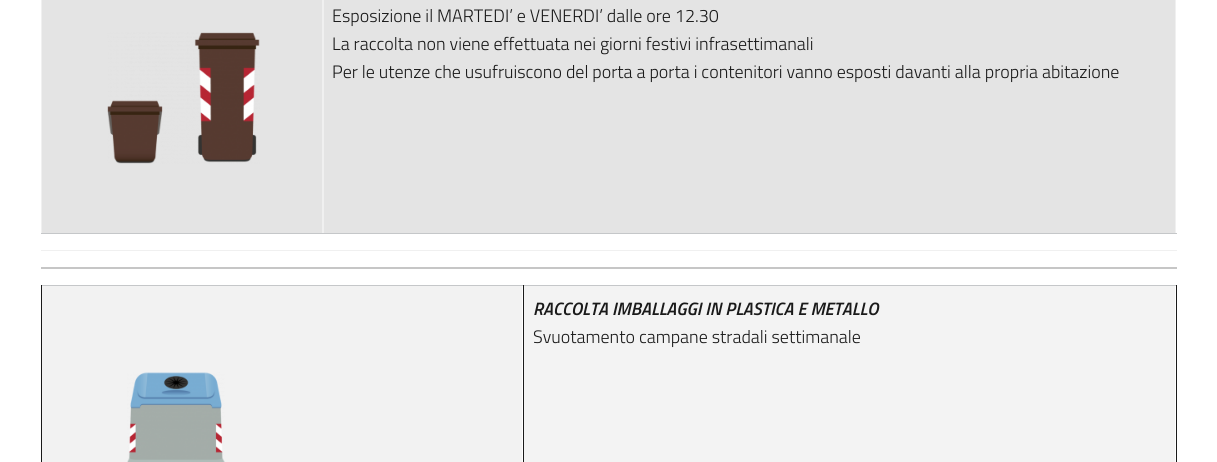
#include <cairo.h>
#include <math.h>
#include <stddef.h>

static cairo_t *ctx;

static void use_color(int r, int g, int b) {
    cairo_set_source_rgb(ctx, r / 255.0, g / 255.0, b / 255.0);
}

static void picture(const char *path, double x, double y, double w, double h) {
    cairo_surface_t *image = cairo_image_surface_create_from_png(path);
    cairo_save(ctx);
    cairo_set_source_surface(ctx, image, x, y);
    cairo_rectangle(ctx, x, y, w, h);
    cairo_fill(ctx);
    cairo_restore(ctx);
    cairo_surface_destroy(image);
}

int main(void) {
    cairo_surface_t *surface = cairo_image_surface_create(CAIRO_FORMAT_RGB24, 1217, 462);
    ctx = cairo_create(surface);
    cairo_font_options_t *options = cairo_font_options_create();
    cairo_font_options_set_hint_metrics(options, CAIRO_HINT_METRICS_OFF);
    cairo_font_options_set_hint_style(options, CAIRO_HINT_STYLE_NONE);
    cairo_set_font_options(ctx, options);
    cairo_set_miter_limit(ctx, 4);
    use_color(255, 255, 255);
    cairo_paint(ctx);
    use_color(240, 240, 240);
    cairo_rectangle(ctx, 41, 250, 1136, 1);
    cairo_fill(ctx);
    cairo_rectangle(ctx, 41, 0, 1135, 233);
    cairo_fill(ctx);
    use_color(228, 228, 228);
    cairo_rectangle(ctx, 324, 0, 851, 233);
    cairo_fill(ctx);
    cairo_rectangle(ctx, 42, 0, 280, 233);
    cairo_fill(ctx);
    use_color(197, 199, 201);
    cairo_rectangle(ctx, 41, 233, 1136, 1);
    cairo_fill(ctx);
    picture("img1.png", 107, 32, 153, 132);
    cairo_select_font_face(ctx, "Titillium Web Light", CAIRO_FONT_SLANT_NORMAL, CAIRO_FONT_WEIGHT_NORMAL);
    cairo_set_font_size(ctx, 18);
    use_color(26, 26, 26);
    cairo_move_to(ctx, 332, 22);
    cairo_show_text(ctx, "Esposizione il MARTEDI’ e VENERDI’ dalle ore 12.30");
    cairo_move_to(ctx, 332, 50);
    cairo_show_text(ctx, "La raccolta non viene effettuata nei giorni festivi infrasettimanali");
    cairo_move_to(ctx, 332, 78);
    cairo_show_text(ctx, "Per le utenze che usufruiscono del porta a porta i contenitori vanno esposti davanti alla propria abitazione");
    use_color(198, 198, 198);
    cairo_rectangle(ctx, 41, 267, 1136, 2);
    cairo_fill(ctx);
    use_color(197, 199, 201);
    cairo_rectangle(ctx, 41, 285, 1136, 1);
    cairo_fill(ctx);
    use_color(242, 242, 242);
    cairo_rectangle(ctx, 42, 286, 480, 176);
    cairo_fill(ctx);
    use_color(26, 26, 26);
    cairo_rectangle(ctx, 41, 285, 1, 177);
    cairo_fill(ctx);
    picture("img2.png", 127, 372, 98, 90);
    use_color(243, 243, 243);
    cairo_rectangle(ctx, 524, 286, 651, 176);
    cairo_fill(ctx);
    use_color(26, 26, 26);
    cairo_rectangle(ctx, 1176, 285, 1, 177);
    cairo_fill(ctx);
    cairo_rectangle(ctx, 523, 285, 1, 177);
    cairo_fill(ctx);
    cairo_select_font_face(ctx, "Titillium Web SemiBold", CAIRO_FONT_SLANT_ITALIC, CAIRO_FONT_WEIGHT_NORMAL);
    cairo_move_to(ctx, 533, 315);
    cairo_show_text(ctx, "RACCOLTA IMBALLAGGI IN PLASTICA E METALLO");
    cairo_select_font_face(ctx, "Titillium Web Light", CAIRO_FONT_SLANT_NORMAL, CAIRO_FONT_WEIGHT_NORMAL);
    cairo_move_to(ctx, 533, 343);
    cairo_show_text(ctx, "Svuotamento campane stradali settimanale");
    cairo_surface_write_to_png(surface, "result.png");
    cairo_font_options_destroy(options);
    cairo_destroy(ctx);
    cairo_surface_destroy(surface);
    return 0;
}
